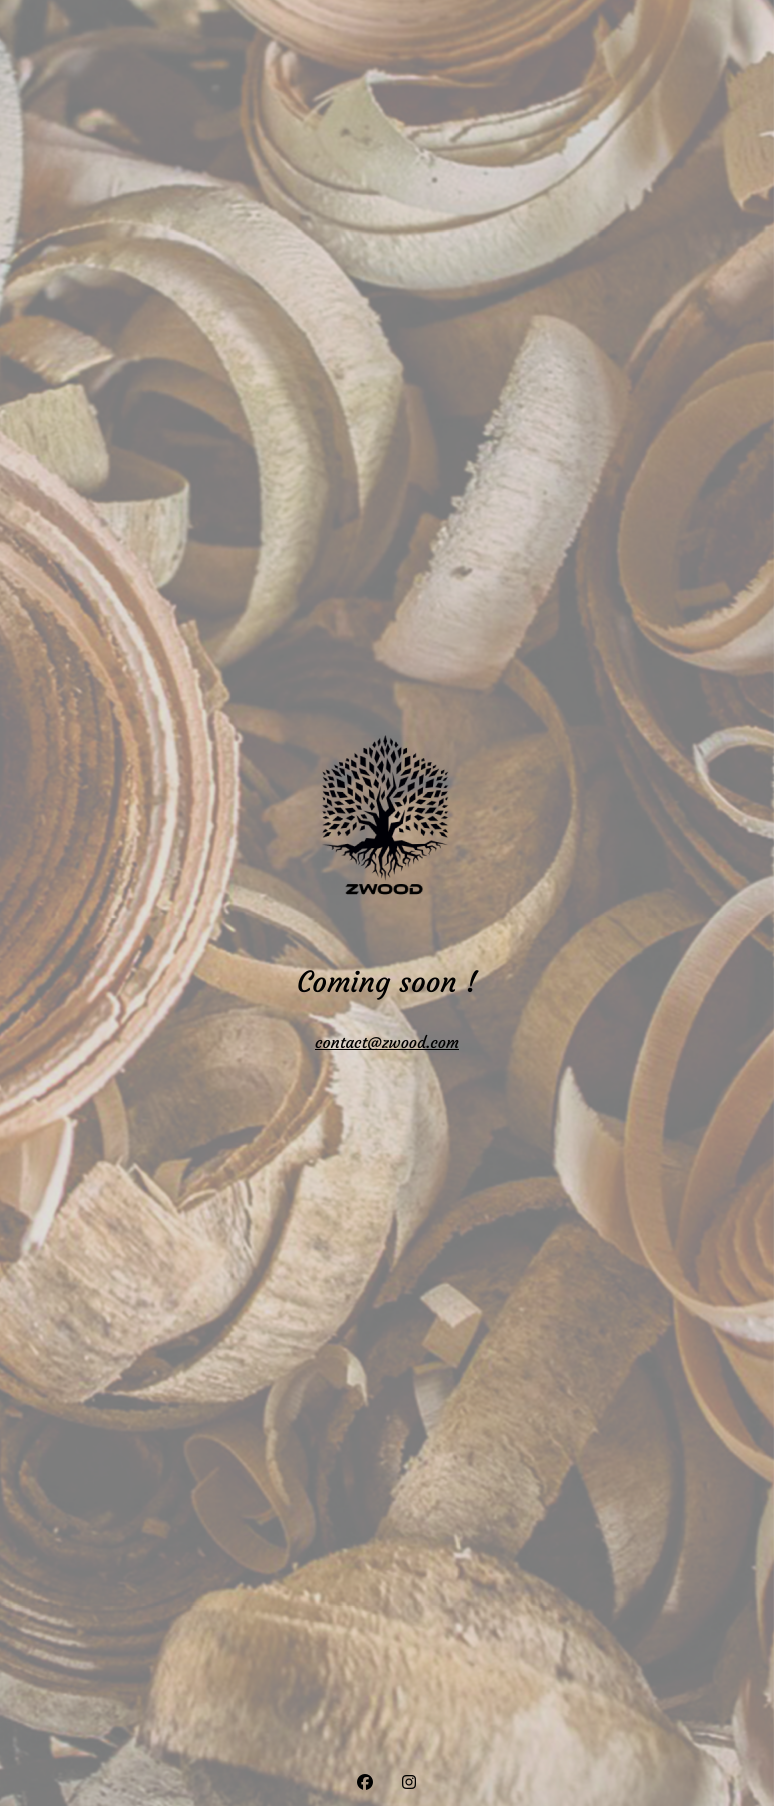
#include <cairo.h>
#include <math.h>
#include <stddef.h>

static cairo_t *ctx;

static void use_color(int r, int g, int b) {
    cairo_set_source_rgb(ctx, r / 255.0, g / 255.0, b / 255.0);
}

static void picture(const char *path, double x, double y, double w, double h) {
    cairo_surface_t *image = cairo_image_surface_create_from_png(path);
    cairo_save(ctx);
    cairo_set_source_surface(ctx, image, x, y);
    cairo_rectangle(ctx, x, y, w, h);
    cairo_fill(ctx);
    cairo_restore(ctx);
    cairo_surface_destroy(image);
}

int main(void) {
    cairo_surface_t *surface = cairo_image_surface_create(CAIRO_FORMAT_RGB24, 774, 1806);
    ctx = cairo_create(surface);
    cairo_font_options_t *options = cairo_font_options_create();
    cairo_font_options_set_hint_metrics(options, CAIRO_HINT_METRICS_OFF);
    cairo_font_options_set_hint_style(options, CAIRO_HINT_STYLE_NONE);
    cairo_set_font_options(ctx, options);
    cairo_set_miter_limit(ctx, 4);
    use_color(255, 255, 255);
    cairo_paint(ctx);
    picture("img1.png", 0, 0, 774, 1806);
    picture("img2.png", 322, 735, 127, 160);
    cairo_select_font_face(ctx, "Courgette", CAIRO_FONT_SLANT_NORMAL, CAIRO_FONT_WEIGHT_NORMAL);
    cairo_set_font_size(ctx, 28.75);
    use_color(0, 0, 0);
    cairo_move_to(ctx, 297, 992);
    cairo_show_text(ctx, "Coming soon !");
    cairo_rectangle(ctx, 315, 1049, 144, 1);
    cairo_fill(ctx);
    cairo_set_font_size(ctx, 16);
    cairo_move_to(ctx, 315, 1048);
    cairo_show_text(ctx, "contact@zwood.com");
    picture("img3.png", 357, 1774, 16, 16);
    picture("img4.png", 402, 1775, 14, 14);
    cairo_surface_write_to_png(surface, "result.png");
    cairo_font_options_destroy(options);
    cairo_destroy(ctx);
    cairo_surface_destroy(surface);
    return 0;
}
